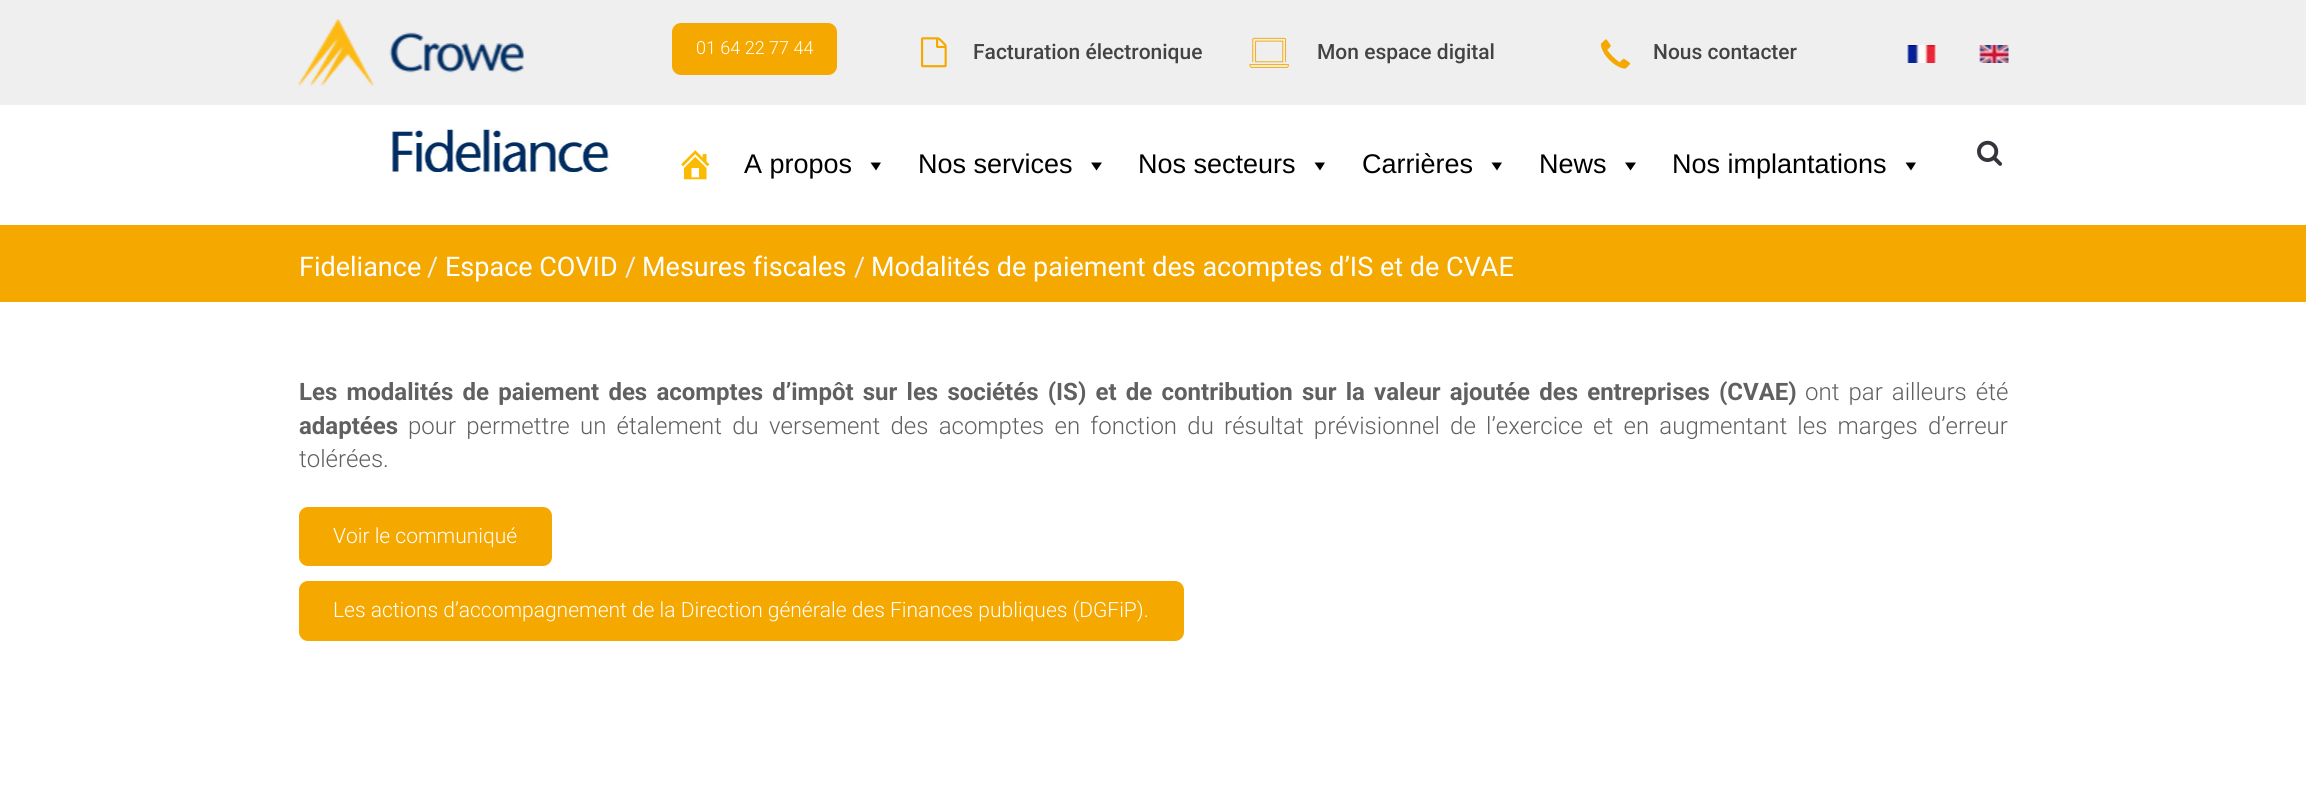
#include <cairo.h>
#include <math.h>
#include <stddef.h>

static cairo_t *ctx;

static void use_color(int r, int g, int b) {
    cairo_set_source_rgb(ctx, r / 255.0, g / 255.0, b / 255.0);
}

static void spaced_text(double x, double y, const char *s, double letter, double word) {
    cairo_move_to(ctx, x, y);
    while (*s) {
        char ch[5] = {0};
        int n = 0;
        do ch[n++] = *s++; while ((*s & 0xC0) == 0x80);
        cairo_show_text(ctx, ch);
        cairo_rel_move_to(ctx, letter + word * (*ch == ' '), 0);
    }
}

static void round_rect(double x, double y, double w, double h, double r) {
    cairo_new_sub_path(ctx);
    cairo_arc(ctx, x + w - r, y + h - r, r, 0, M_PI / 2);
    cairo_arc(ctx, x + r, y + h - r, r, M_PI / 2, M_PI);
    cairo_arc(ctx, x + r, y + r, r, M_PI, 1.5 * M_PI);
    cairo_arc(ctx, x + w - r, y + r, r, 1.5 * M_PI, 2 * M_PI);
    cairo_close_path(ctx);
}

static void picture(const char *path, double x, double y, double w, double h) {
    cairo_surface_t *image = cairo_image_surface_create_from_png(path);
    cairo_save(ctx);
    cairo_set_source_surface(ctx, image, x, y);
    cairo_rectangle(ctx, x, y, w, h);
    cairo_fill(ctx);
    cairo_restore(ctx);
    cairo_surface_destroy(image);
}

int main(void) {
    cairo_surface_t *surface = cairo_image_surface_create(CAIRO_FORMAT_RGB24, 2306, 790);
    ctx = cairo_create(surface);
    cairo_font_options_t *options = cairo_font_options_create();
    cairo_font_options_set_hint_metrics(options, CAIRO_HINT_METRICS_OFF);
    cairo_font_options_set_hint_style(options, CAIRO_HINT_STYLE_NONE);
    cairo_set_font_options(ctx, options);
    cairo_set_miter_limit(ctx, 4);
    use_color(255, 255, 255);
    cairo_paint(ctx);
    use_color(239, 239, 239);
    cairo_rectangle(ctx, 0, 0, 2306, 105);
    cairo_fill(ctx);
    picture("img1.png", 298, 19, 226, 67);
    use_color(245, 168, 0);
    round_rect(672, 23, 165, 52, 9);
    cairo_fill(ctx);
    cairo_select_font_face(ctx, "Roboto Light", CAIRO_FONT_SLANT_NORMAL, CAIRO_FONT_WEIGHT_NORMAL);
    cairo_set_font_size(ctx, 18);
    use_color(255, 255, 255);
    cairo_move_to(ctx, 696, 54);
    cairo_show_text(ctx, "01 64 22 77 44");
    picture("img2.png", 921, 37, 26, 31);
    cairo_select_font_face(ctx, "Roboto Medium", CAIRO_FONT_SLANT_NORMAL, CAIRO_FONT_WEIGHT_NORMAL);
    cairo_set_font_size(ctx, 21);
    use_color(67, 67, 67);
    cairo_move_to(ctx, 973, 59);
    cairo_show_text(ctx, "Facturation électronique");
    picture("img3.png", 1249, 37, 40, 31);
    cairo_move_to(ctx, 1317, 59);
    cairo_show_text(ctx, "Mon espace digital");
    picture("img4.png", 1600, 39, 31, 30);
    cairo_move_to(ctx, 1653, 59);
    cairo_show_text(ctx, "Nous contacter");
    picture("img5.png", 1907, 45, 29, 18);
    picture("img6.png", 1979, 45, 30, 18);
    picture("img7.png", 390, 128, 220, 45);
    picture("img8.png", 1977, 140, 25, 26);
    picture("img9.png", 681, 150, 29, 30);
    cairo_select_font_face(ctx, "Liberation Sans", CAIRO_FONT_SLANT_NORMAL, CAIRO_FONT_WEIGHT_NORMAL);
    cairo_set_font_size(ctx, 27);
    use_color(0, 0, 0);
    cairo_move_to(ctx, 744, 173);
    cairo_show_text(ctx, "A propos");
    cairo_new_path(ctx);
    cairo_move_to(ctx, 881, 162.5);
    cairo_line_to(ctx, 876, 170.5);
    cairo_line_to(ctx, 870.5, 162.5);
    cairo_close_path(ctx);
    cairo_fill(ctx);
    cairo_move_to(ctx, 918, 173);
    cairo_show_text(ctx, "Nos services");
    cairo_new_path(ctx);
    cairo_move_to(ctx, 1102, 162.5);
    cairo_line_to(ctx, 1096.5, 170.5);
    cairo_line_to(ctx, 1091, 162.5);
    cairo_close_path(ctx);
    cairo_fill(ctx);
    cairo_move_to(ctx, 1138, 173);
    cairo_show_text(ctx, "Nos secteurs");
    cairo_new_path(ctx);
    cairo_move_to(ctx, 1325, 162.5);
    cairo_line_to(ctx, 1320, 170.5);
    cairo_line_to(ctx, 1314.5, 162.5);
    cairo_close_path(ctx);
    cairo_fill(ctx);
    cairo_move_to(ctx, 1362, 173);
    cairo_show_text(ctx, "Carrières");
    cairo_new_path(ctx);
    cairo_move_to(ctx, 1502, 162.5);
    cairo_line_to(ctx, 1497, 170.5);
    cairo_line_to(ctx, 1491.5, 162.5);
    cairo_close_path(ctx);
    cairo_fill(ctx);
    cairo_move_to(ctx, 1539, 173);
    cairo_show_text(ctx, "News");
    cairo_new_path(ctx);
    cairo_move_to(ctx, 1636, 162.5);
    cairo_line_to(ctx, 1630.5, 170.5);
    cairo_line_to(ctx, 1625, 162.5);
    cairo_close_path(ctx);
    cairo_fill(ctx);
    cairo_move_to(ctx, 1672, 173);
    cairo_show_text(ctx, "Nos implantations");
    cairo_new_path(ctx);
    cairo_move_to(ctx, 1916, 162.5);
    cairo_line_to(ctx, 1911, 170.5);
    cairo_line_to(ctx, 1905.5, 162.5);
    cairo_close_path(ctx);
    cairo_fill(ctx);
    use_color(245, 168, 0);
    cairo_rectangle(ctx, 0, 225, 2306, 77);
    cairo_fill(ctx);
    cairo_select_font_face(ctx, "Roboto", CAIRO_FONT_SLANT_NORMAL, CAIRO_FONT_WEIGHT_NORMAL);
    use_color(255, 255, 255);
    cairo_move_to(ctx, 299, 276);
    cairo_show_text(ctx, "Fideliance");
    use_color(239, 239, 239);
    cairo_move_to(ctx, 427, 276);
    cairo_show_text(ctx, "/");
    use_color(255, 255, 255);
    cairo_move_to(ctx, 445, 276);
    cairo_show_text(ctx, "Espace COVID");
    use_color(239, 239, 239);
    cairo_move_to(ctx, 625, 276);
    cairo_show_text(ctx, "/");
    use_color(255, 255, 255);
    cairo_move_to(ctx, 642, 276);
    cairo_show_text(ctx, "Mesures fiscales");
    use_color(239, 239, 239);
    cairo_move_to(ctx, 854, 276);
    cairo_show_text(ctx, "/");
    use_color(255, 255, 255);
    cairo_move_to(ctx, 871, 276);
    cairo_show_text(ctx, "Modalités de paiement des acomptes d’IS et de CVAE");
    cairo_select_font_face(ctx, "Roboto", CAIRO_FONT_SLANT_NORMAL, CAIRO_FONT_WEIGHT_BOLD);
    cairo_set_font_size(ctx, 24);
    use_color(96, 96, 96);
    spaced_text(299, 400, "Les modalités de paiement des acomptes d’impôt sur les sociétés (IS) et de contribution sur la valeur ajoutée des entreprises (CVAE)", 0, 3.25);
    cairo_select_font_face(ctx, "Roboto Light", CAIRO_FONT_SLANT_NORMAL, CAIRO_FONT_WEIGHT_NORMAL);
    spaced_text(1805, 400, "ont par ailleurs été", 0, 3.25);
    cairo_select_font_face(ctx, "Roboto", CAIRO_FONT_SLANT_NORMAL, CAIRO_FONT_WEIGHT_BOLD);
    cairo_move_to(ctx, 299, 434);
    cairo_show_text(ctx, "adaptées");
    cairo_select_font_face(ctx, "Roboto Light", CAIRO_FONT_SLANT_NORMAL, CAIRO_FONT_WEIGHT_NORMAL);
    spaced_text(408, 434, "pour permettre un étalement du versement des acomptes en fonction du résultat prévisionnel de l’exercice et en augmentant les marges d’erreur", 0, 4.4);
    cairo_move_to(ctx, 299, 467);
    cairo_show_text(ctx, "tolérées.");
    use_color(245, 168, 0);
    round_rect(299, 507, 253, 59, 9);
    cairo_fill(ctx);
    cairo_set_font_size(ctx, 21);
    use_color(255, 255, 255);
    cairo_move_to(ctx, 333, 543);
    cairo_show_text(ctx, "Voir le communiqué");
    use_color(245, 168, 0);
    round_rect(299, 581, 885, 60, 9);
    cairo_fill(ctx);
    use_color(255, 255, 255);
    cairo_move_to(ctx, 333, 617);
    cairo_show_text(ctx, "Les actions d’accompagnement de la Direction générale des Finances publiques (DGFiP).");
    cairo_surface_write_to_png(surface, "result.png");
    cairo_font_options_destroy(options);
    cairo_destroy(ctx);
    cairo_surface_destroy(surface);
    return 0;
}
